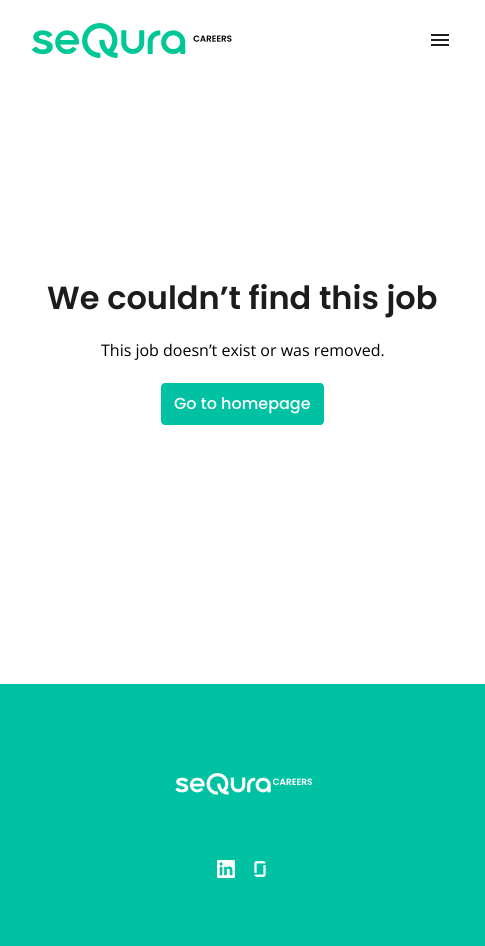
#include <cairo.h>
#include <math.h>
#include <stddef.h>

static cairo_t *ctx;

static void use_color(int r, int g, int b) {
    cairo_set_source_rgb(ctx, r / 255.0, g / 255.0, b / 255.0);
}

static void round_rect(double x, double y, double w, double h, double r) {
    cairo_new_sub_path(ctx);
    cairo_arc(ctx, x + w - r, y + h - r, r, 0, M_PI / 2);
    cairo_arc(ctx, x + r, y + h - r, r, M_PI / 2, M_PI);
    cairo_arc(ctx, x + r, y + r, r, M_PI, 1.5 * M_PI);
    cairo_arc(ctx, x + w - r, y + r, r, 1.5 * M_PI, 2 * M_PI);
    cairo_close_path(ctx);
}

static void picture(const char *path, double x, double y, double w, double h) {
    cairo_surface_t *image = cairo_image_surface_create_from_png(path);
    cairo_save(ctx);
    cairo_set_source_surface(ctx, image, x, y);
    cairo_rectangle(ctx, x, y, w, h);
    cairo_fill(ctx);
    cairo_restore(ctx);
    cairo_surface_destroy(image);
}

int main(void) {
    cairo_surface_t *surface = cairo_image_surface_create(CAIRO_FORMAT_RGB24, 485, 946);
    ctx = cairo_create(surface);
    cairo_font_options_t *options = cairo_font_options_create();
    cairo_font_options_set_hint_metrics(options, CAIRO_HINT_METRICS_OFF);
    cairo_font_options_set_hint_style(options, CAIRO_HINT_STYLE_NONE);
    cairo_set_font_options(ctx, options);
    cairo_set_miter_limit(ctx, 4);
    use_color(255, 255, 255);
    cairo_paint(ctx);
    picture("img1.png", 32, 23, 200, 35);
    picture("img2.png", 431, 34, 18, 12);
    cairo_select_font_face(ctx, "Poppins SemiBold", CAIRO_FONT_SLANT_NORMAL, CAIRO_FONT_WEIGHT_NORMAL);
    cairo_set_font_size(ctx, 32);
    use_color(28, 28, 28);
    cairo_move_to(ctx, 47, 309);
    cairo_show_text(ctx, "We couldn’t find this job");
    cairo_select_font_face(ctx, "Open Sans", CAIRO_FONT_SLANT_NORMAL, CAIRO_FONT_WEIGHT_NORMAL);
    cairo_set_font_size(ctx, 16);
    use_color(0, 0, 0);
    cairo_move_to(ctx, 101, 356);
    cairo_show_text(ctx, "This job doesn’t exist or was removed.");
    use_color(0, 194, 163);
    round_rect(161.5, 383.5, 162, 41, 3.5);
    cairo_fill_preserve(ctx);
    cairo_set_line_width(ctx, 1);
    cairo_stroke(ctx);
    cairo_select_font_face(ctx, "Poppins Medium", CAIRO_FONT_SLANT_NORMAL, CAIRO_FONT_WEIGHT_NORMAL);
    use_color(255, 255, 255);
    cairo_move_to(ctx, 174, 409);
    cairo_show_text(ctx, "Go to homepage");
    use_color(0, 194, 163);
    cairo_rectangle(ctx, 0, 684, 485, 262);
    cairo_fill(ctx);
    picture("img3.png", 175, 773, 138, 22);
    picture("img4.png", 217, 860, 18, 18);
    picture("img5.png", 254, 861, 12, 16);
    cairo_surface_write_to_png(surface, "result.png");
    cairo_font_options_destroy(options);
    cairo_destroy(ctx);
    cairo_surface_destroy(surface);
    return 0;
}
